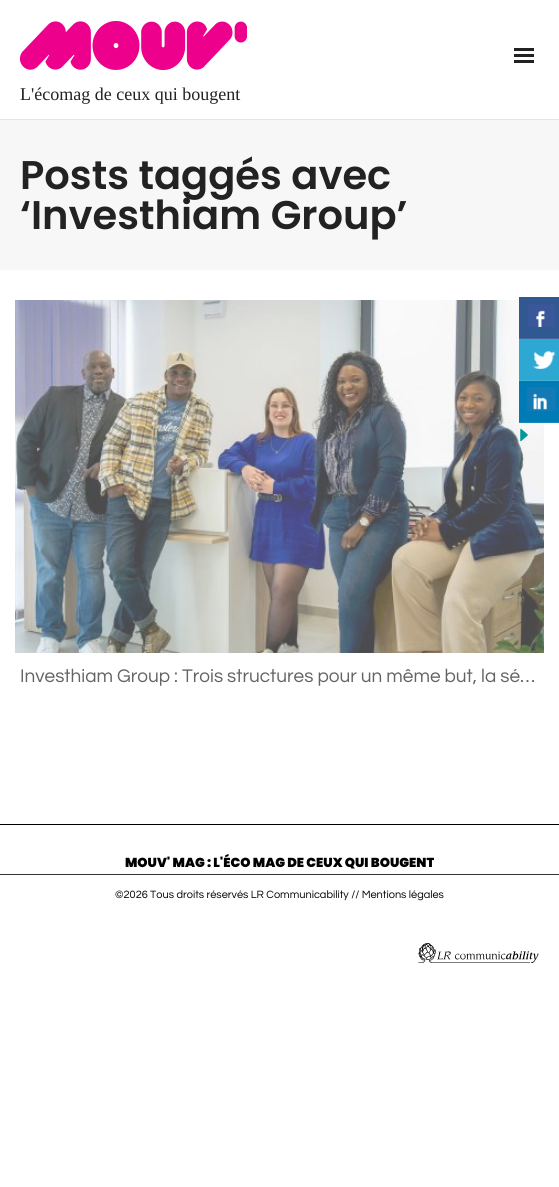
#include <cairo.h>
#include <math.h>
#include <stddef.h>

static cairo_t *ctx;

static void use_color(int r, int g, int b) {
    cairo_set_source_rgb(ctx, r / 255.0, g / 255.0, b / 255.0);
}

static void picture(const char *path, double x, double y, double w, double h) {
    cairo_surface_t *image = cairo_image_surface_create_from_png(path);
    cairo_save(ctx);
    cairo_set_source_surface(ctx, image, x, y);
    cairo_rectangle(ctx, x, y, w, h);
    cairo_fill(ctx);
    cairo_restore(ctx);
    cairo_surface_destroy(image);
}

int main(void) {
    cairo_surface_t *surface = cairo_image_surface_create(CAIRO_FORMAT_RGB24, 559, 1187);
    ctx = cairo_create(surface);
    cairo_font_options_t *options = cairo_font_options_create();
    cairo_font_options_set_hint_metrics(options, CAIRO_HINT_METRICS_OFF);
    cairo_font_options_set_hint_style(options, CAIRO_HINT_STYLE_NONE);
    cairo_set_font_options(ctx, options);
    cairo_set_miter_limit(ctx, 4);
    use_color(255, 255, 255);
    cairo_paint(ctx);
    use_color(228, 228, 228);
    cairo_rectangle(ctx, 0, 119, 559, 1);
    cairo_fill(ctx);
    use_color(34, 34, 34);
    cairo_rectangle(ctx, 514, 54, 20, 3);
    cairo_fill(ctx);
    cairo_rectangle(ctx, 514, 48, 20, 3);
    cairo_fill(ctx);
    cairo_rectangle(ctx, 514, 60, 20, 3);
    cairo_fill(ctx);
    picture("img1.png", 20, 21, 227, 49);
    cairo_select_font_face(ctx, "Liberation Serif", CAIRO_FONT_SLANT_NORMAL, CAIRO_FONT_WEIGHT_NORMAL);
    cairo_set_font_size(ctx, 18);
    cairo_move_to(ctx, 20, 100);
    cairo_show_text(ctx, "L'écomag de ceux qui bougent");
    use_color(247, 247, 247);
    cairo_rectangle(ctx, 0, 120, 559, 150);
    cairo_fill(ctx);
    cairo_select_font_face(ctx, "Poppins SemiBold", CAIRO_FONT_SLANT_NORMAL, CAIRO_FONT_WEIGHT_NORMAL);
    cairo_set_font_size(ctx, 40);
    use_color(34, 34, 34);
    cairo_move_to(ctx, 20, 189);
    cairo_show_text(ctx, "Posts taggés avec");
    cairo_move_to(ctx, 20, 229);
    cairo_show_text(ctx, "‘Investhiam Group’");
    picture("img2.png", 15, 300, 529, 353);
    cairo_select_font_face(ctx, "Questrial", CAIRO_FONT_SLANT_NORMAL, CAIRO_FONT_WEIGHT_NORMAL);
    cairo_set_font_size(ctx, 19);
    use_color(99, 99, 99);
    cairo_move_to(ctx, 20, 682);
    cairo_show_text(ctx, "Investhiam Group : Trois structures pour un même but, la sé…");
    use_color(0, 0, 0);
    cairo_rectangle(ctx, 0, 824, 559, 1);
    cairo_fill(ctx);
    cairo_select_font_face(ctx, "Poppins Black", CAIRO_FONT_SLANT_NORMAL, CAIRO_FONT_WEIGHT_NORMAL);
    cairo_set_font_size(ctx, 13);
    cairo_move_to(ctx, 125, 867);
    cairo_show_text(ctx, "MOUV' MAG : L'ÉCO MAG DE CEUX QUI BOUGENT");
    use_color(51, 51, 51);
    cairo_rectangle(ctx, 0, 874, 559, 1);
    cairo_fill(ctx);
    cairo_select_font_face(ctx, "Questrial", CAIRO_FONT_SLANT_NORMAL, CAIRO_FONT_WEIGHT_NORMAL);
    cairo_set_font_size(ctx, 11);
    use_color(0, 0, 0);
    cairo_move_to(ctx, 115, 898);
    cairo_show_text(ctx, "©2026 Tous droits réservés LR Communicability // Mentions légales");
    picture("img3.png", 418, 943, 121, 20);
    use_color(48, 88, 145);
    cairo_rectangle(ctx, 519, 297, 40, 41);
    cairo_fill(ctx);
    use_color(69, 105, 156);
    cairo_rectangle(ctx, 519, 338, 40, 1);
    cairo_fill(ctx);
    picture("img4.png", 527, 304, 28, 23);
    use_color(44, 168, 210);
    cairo_rectangle(ctx, 519, 339, 40, 41);
    cairo_fill(ctx);
    use_color(65, 177, 215);
    cairo_rectangle(ctx, 519, 380, 40, 1);
    cairo_fill(ctx);
    picture("img5.png", 533, 351, 23, 18);
    use_color(0, 123, 182);
    cairo_rectangle(ctx, 519, 381, 40, 41);
    cairo_fill(ctx);
    use_color(26, 136, 189);
    cairo_rectangle(ctx, 519, 422, 40, 1);
    cairo_fill(ctx);
    picture("img6.png", 527, 387, 29, 24);
    picture("img7.png", 520, 428, 8, 14);
    cairo_surface_write_to_png(surface, "result.png");
    cairo_font_options_destroy(options);
    cairo_destroy(ctx);
    cairo_surface_destroy(surface);
    return 0;
}
